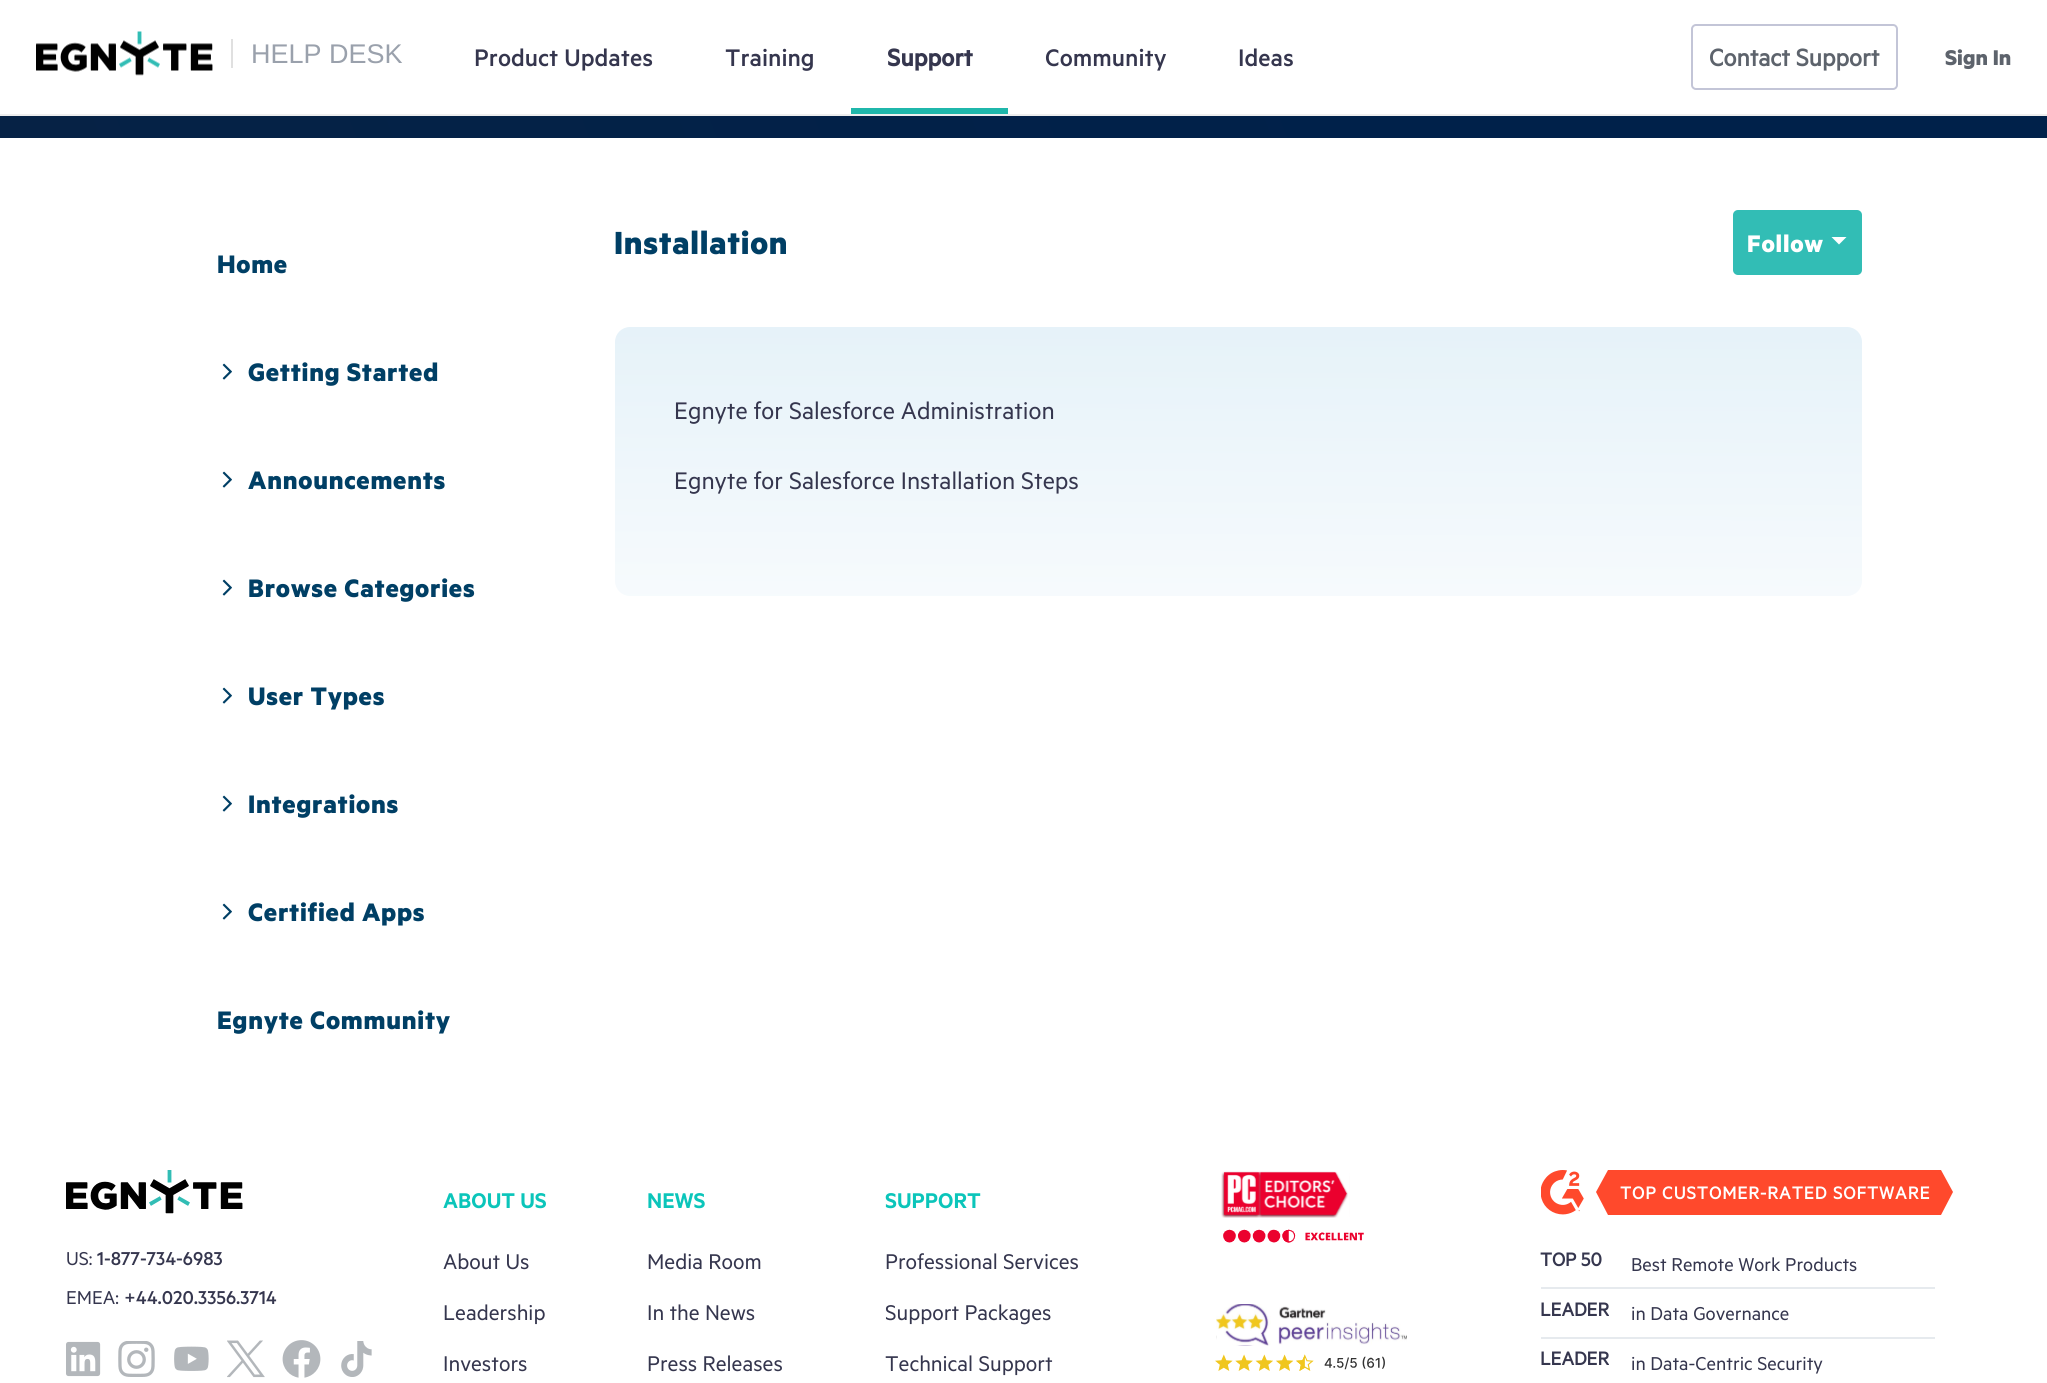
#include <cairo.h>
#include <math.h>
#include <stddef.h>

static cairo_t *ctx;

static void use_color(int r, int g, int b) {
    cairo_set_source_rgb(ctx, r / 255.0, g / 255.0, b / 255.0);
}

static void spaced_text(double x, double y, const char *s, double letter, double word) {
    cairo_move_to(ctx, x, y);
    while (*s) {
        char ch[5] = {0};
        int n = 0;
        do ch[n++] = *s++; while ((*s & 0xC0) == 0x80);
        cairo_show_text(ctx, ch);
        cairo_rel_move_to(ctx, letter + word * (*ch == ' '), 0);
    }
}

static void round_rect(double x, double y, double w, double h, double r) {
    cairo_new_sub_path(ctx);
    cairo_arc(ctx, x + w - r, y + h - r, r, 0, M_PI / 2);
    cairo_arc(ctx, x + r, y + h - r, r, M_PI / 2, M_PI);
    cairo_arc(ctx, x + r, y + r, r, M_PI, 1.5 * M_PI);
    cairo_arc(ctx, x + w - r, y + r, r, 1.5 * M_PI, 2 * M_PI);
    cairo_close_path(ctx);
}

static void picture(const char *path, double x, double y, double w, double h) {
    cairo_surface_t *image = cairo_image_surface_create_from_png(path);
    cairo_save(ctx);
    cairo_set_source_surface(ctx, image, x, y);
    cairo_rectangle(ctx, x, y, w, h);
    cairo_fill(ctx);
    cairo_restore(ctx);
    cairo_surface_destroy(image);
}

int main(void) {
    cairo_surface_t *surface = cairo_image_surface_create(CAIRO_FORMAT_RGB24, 2047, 1383);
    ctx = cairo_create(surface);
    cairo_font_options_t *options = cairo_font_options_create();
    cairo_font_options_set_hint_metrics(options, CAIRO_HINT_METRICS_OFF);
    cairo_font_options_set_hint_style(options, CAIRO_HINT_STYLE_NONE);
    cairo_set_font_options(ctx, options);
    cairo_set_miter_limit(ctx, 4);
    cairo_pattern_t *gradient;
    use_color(255, 255, 255);
    cairo_paint(ctx);
    use_color(238, 238, 238);
    cairo_rectangle(ctx, 0, 114, 2047, 2);
    cairo_fill(ctx);
    picture("img1.png", 36, 31, 177, 45);
    use_color(224, 224, 224);
    cairo_rectangle(ctx, 231, 39, 2, 29);
    cairo_fill(ctx);
    cairo_select_font_face(ctx, "Liberation Sans", CAIRO_FONT_SLANT_NORMAL, CAIRO_FONT_WEIGHT_NORMAL);
    cairo_set_font_size(ctx, 27);
    use_color(154, 161, 172);
    cairo_move_to(ctx, 251, 63);
    cairo_show_text(ctx, "HELP DESK");
    cairo_select_font_face(ctx, "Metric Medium", CAIRO_FONT_SLANT_NORMAL, CAIRO_FONT_WEIGHT_NORMAL);
    use_color(53, 54, 78);
    cairo_move_to(ctx, 474, 66);
    cairo_show_text(ctx, "Product Updates");
    cairo_move_to(ctx, 725, 66);
    cairo_show_text(ctx, "Training");
    use_color(31, 183, 171);
    cairo_rectangle(ctx, 851, 108, 157, 6);
    cairo_fill(ctx);
    cairo_select_font_face(ctx, "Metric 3", CAIRO_FONT_SLANT_NORMAL, CAIRO_FONT_WEIGHT_BOLD);
    use_color(53, 54, 78);
    cairo_move_to(ctx, 887, 66);
    cairo_show_text(ctx, "Support");
    cairo_select_font_face(ctx, "Metric Medium", CAIRO_FONT_SLANT_NORMAL, CAIRO_FONT_WEIGHT_NORMAL);
    cairo_move_to(ctx, 1045, 66);
    cairo_show_text(ctx, "Community");
    cairo_move_to(ctx, 1238, 66);
    cairo_show_text(ctx, "Ideas");
    round_rect(1692, 25, 205, 64, 4);
    use_color(195, 197, 215);
    cairo_stroke(ctx);
    cairo_select_font_face(ctx, "Metric", CAIRO_FONT_SLANT_NORMAL, CAIRO_FONT_WEIGHT_BOLD);
    use_color(93, 99, 108);
    cairo_move_to(ctx, 1709, 66);
    cairo_show_text(ctx, "Contact Support");
    cairo_select_font_face(ctx, "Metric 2", CAIRO_FONT_SLANT_NORMAL, CAIRO_FONT_WEIGHT_BOLD);
    cairo_set_font_size(ctx, 24);
    cairo_move_to(ctx, 1945, 65);
    cairo_show_text(ctx, "Sign In");
    gradient = cairo_pattern_create_linear(1935, -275, -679, 736);
    cairo_pattern_add_color_stop_rgba(gradient, 0.23, 0, 0.129, 0.29, 1);
    cairo_pattern_add_color_stop_rgba(gradient, 1, 0.039, 0.137, 0.259, 1);
    cairo_set_source(ctx, gradient);
    cairo_pattern_destroy(gradient);
    cairo_rectangle(ctx, 0, 116, 2047, 22);
    cairo_fill(ctx);
    cairo_set_font_size(ctx, 28.5);
    use_color(0, 63, 101);
    spaced_text(217, 273, "Home", 0.75, 0);
    picture("img2.png", 222, 363, 10, 17);
    spaced_text(248, 381, "Getting Started", 0.75, 0);
    picture("img2.png", 222, 471, 10, 17);
    spaced_text(248, 489, "Announcements", 0.75, 0);
    picture("img2.png", 222, 579, 10, 17);
    spaced_text(248, 597, "Browse Categories", 0.75, 0);
    picture("img2.png", 222, 687, 10, 17);
    spaced_text(248, 705, "User Types", 0.75, 0);
    picture("img2.png", 222, 795, 10, 17);
    spaced_text(248, 813, "Integrations", 0.75, 0);
    picture("img2.png", 222, 903, 10, 17);
    spaced_text(248, 921, "Certified Apps", 0.75, 0);
    spaced_text(217, 1029, "Egnyte Community", 0.75, 0);
    cairo_set_font_size(ctx, 36);
    spaced_text(614, 254, "Installation", 0.75, 0);
    use_color(50, 189, 181);
    round_rect(1733, 210, 129, 65, 5);
    cairo_fill(ctx);
    cairo_set_font_size(ctx, 27);
    use_color(255, 255, 255);
    spaced_text(1747, 252, "Follow", 0.75, 0);
    cairo_new_path(ctx);
    cairo_move_to(ctx, 1831.5, 237);
    cairo_line_to(ctx, 1846.5, 237);
    cairo_line_to(ctx, 1839, 244.5);
    cairo_close_path(ctx);
    cairo_fill(ctx);
    gradient = cairo_pattern_create_linear(1239, 299, 1237, 737);
    cairo_pattern_add_color_stop_rgba(gradient, 0, 0.894, 0.945, 0.973, 1);
    cairo_pattern_add_color_stop_rgba(gradient, 1, 1, 1, 1, 1);
    cairo_set_source(ctx, gradient);
    cairo_pattern_destroy(gradient);
    round_rect(615, 327, 1247, 269, 15);
    cairo_fill(ctx);
    cairo_select_font_face(ctx, "Metric", CAIRO_FONT_SLANT_NORMAL, CAIRO_FONT_WEIGHT_NORMAL);
    use_color(53, 54, 78);
    cairo_move_to(ctx, 674, 419);
    cairo_show_text(ctx, "Egnyte for Salesforce Administration");
    cairo_move_to(ctx, 674, 489);
    cairo_show_text(ctx, "Egnyte for Salesforce Installation Steps");
    picture("img3.png", 66, 1170, 177, 44);
    cairo_set_font_size(ctx, 21);
    cairo_move_to(ctx, 66, 1265);
    cairo_show_text(ctx, "US:");
    cairo_select_font_face(ctx, "Metric Medium", CAIRO_FONT_SLANT_NORMAL, CAIRO_FONT_WEIGHT_NORMAL);
    cairo_move_to(ctx, 97, 1265);
    cairo_show_text(ctx, "1-877-734-6983");
    cairo_select_font_face(ctx, "Metric", CAIRO_FONT_SLANT_NORMAL, CAIRO_FONT_WEIGHT_NORMAL);
    cairo_move_to(ctx, 66, 1304);
    cairo_show_text(ctx, "EMEA:");
    cairo_select_font_face(ctx, "Metric Medium", CAIRO_FONT_SLANT_NORMAL, CAIRO_FONT_WEIGHT_NORMAL);
    cairo_move_to(ctx, 124, 1304);
    cairo_show_text(ctx, "+44.020.3356.3714");
    picture("img4.png", 66, 1341, 35, 36);
    picture("img5.png", 118, 1341, 37, 36);
    picture("img6.png", 174, 1346, 35, 25);
    picture("img7.png", 227, 1340, 38, 38);
    picture("img8.png", 282, 1340, 39, 38);
    picture("img9.png", 341, 1341, 31, 36);
    cairo_select_font_face(ctx, "Metric SemiBold", CAIRO_FONT_SLANT_NORMAL, CAIRO_FONT_WEIGHT_NORMAL);
    cairo_set_font_size(ctx, 24);
    use_color(11, 197, 186);
    cairo_move_to(ctx, 443, 1208);
    cairo_show_text(ctx, "ABOUT US");
    cairo_select_font_face(ctx, "Metric", CAIRO_FONT_SLANT_NORMAL, CAIRO_FONT_WEIGHT_NORMAL);
    use_color(53, 54, 78);
    cairo_move_to(ctx, 443, 1269);
    cairo_show_text(ctx, "About Us");
    cairo_move_to(ctx, 443, 1320);
    cairo_show_text(ctx, "Leadership");
    cairo_move_to(ctx, 443, 1371);
    cairo_show_text(ctx, "Investors");
    cairo_select_font_face(ctx, "Metric SemiBold", CAIRO_FONT_SLANT_NORMAL, CAIRO_FONT_WEIGHT_NORMAL);
    use_color(11, 197, 186);
    cairo_move_to(ctx, 647, 1208);
    cairo_show_text(ctx, "NEWS");
    cairo_select_font_face(ctx, "Metric", CAIRO_FONT_SLANT_NORMAL, CAIRO_FONT_WEIGHT_NORMAL);
    use_color(53, 54, 78);
    cairo_move_to(ctx, 647, 1269);
    cairo_show_text(ctx, "Media Room");
    cairo_move_to(ctx, 647, 1320);
    cairo_show_text(ctx, "In the News");
    cairo_move_to(ctx, 647, 1371);
    cairo_show_text(ctx, "Press Releases");
    cairo_select_font_face(ctx, "Metric SemiBold", CAIRO_FONT_SLANT_NORMAL, CAIRO_FONT_WEIGHT_NORMAL);
    use_color(11, 197, 186);
    cairo_move_to(ctx, 885, 1208);
    cairo_show_text(ctx, "SUPPORT");
    cairo_select_font_face(ctx, "Metric", CAIRO_FONT_SLANT_NORMAL, CAIRO_FONT_WEIGHT_NORMAL);
    use_color(53, 54, 78);
    cairo_move_to(ctx, 885, 1269);
    cairo_show_text(ctx, "Professional Services");
    cairo_move_to(ctx, 885, 1320);
    cairo_show_text(ctx, "Support Packages");
    cairo_move_to(ctx, 885, 1371);
    cairo_show_text(ctx, "Technical Support");
    picture("img10.png", 1221, 1171, 143, 72);
    picture("img11.png", 1215, 1304, 192, 67);
    picture("img12.png", 1541, 1170, 43, 45);
    use_color(255, 73, 44);
    cairo_rectangle(ctx, 1608, 1170, 333, 45);
    cairo_fill(ctx);
    cairo_new_path(ctx);
    cairo_move_to(ctx, 1608, 1170);
    cairo_line_to(ctx, 1608, 1215);
    cairo_line_to(ctx, 1596, 1192);
    cairo_close_path(ctx);
    cairo_fill(ctx);
    cairo_select_font_face(ctx, "Metric", CAIRO_FONT_SLANT_NORMAL, CAIRO_FONT_WEIGHT_BOLD);
    cairo_set_font_size(ctx, 19.5);
    use_color(255, 255, 255);
    spaced_text(1620, 1199, "TOP CUSTOMER-RATED SOFTWARE", 1, 0);
    use_color(255, 73, 44);
    cairo_new_path(ctx);
    cairo_move_to(ctx, 1941, 1215);
    cairo_line_to(ctx, 1941, 1170);
    cairo_line_to(ctx, 1953, 1192);
    cairo_close_path(ctx);
    cairo_fill(ctx);
    cairo_set_font_size(ctx, 21);
    use_color(53, 54, 78);
    cairo_move_to(ctx, 1540, 1266);
    cairo_show_text(ctx, "TOP 50");
    cairo_select_font_face(ctx, "Metric", CAIRO_FONT_SLANT_NORMAL, CAIRO_FONT_WEIGHT_NORMAL);
    cairo_move_to(ctx, 1631, 1271);
    cairo_show_text(ctx, "Best Remote Work Products");
    use_color(230, 234, 238);
    cairo_rectangle(ctx, 1541, 1287, 394, 2);
    cairo_fill(ctx);
    cairo_select_font_face(ctx, "Metric", CAIRO_FONT_SLANT_NORMAL, CAIRO_FONT_WEIGHT_BOLD);
    use_color(53, 54, 78);
    cairo_move_to(ctx, 1540, 1316);
    cairo_show_text(ctx, "LEADER");
    cairo_select_font_face(ctx, "Metric", CAIRO_FONT_SLANT_NORMAL, CAIRO_FONT_WEIGHT_NORMAL);
    cairo_move_to(ctx, 1631, 1320);
    cairo_show_text(ctx, "in Data Governance");
    use_color(230, 234, 238);
    cairo_rectangle(ctx, 1541, 1337, 394, 2);
    cairo_fill(ctx);
    cairo_select_font_face(ctx, "Metric", CAIRO_FONT_SLANT_NORMAL, CAIRO_FONT_WEIGHT_BOLD);
    use_color(53, 54, 78);
    cairo_move_to(ctx, 1540, 1365);
    cairo_show_text(ctx, "LEADER");
    cairo_select_font_face(ctx, "Metric", CAIRO_FONT_SLANT_NORMAL, CAIRO_FONT_WEIGHT_NORMAL);
    cairo_move_to(ctx, 1631, 1370);
    cairo_show_text(ctx, "in Data-Centric Security");
    cairo_surface_write_to_png(surface, "result.png");
    cairo_font_options_destroy(options);
    cairo_destroy(ctx);
    cairo_surface_destroy(surface);
    return 0;
}
